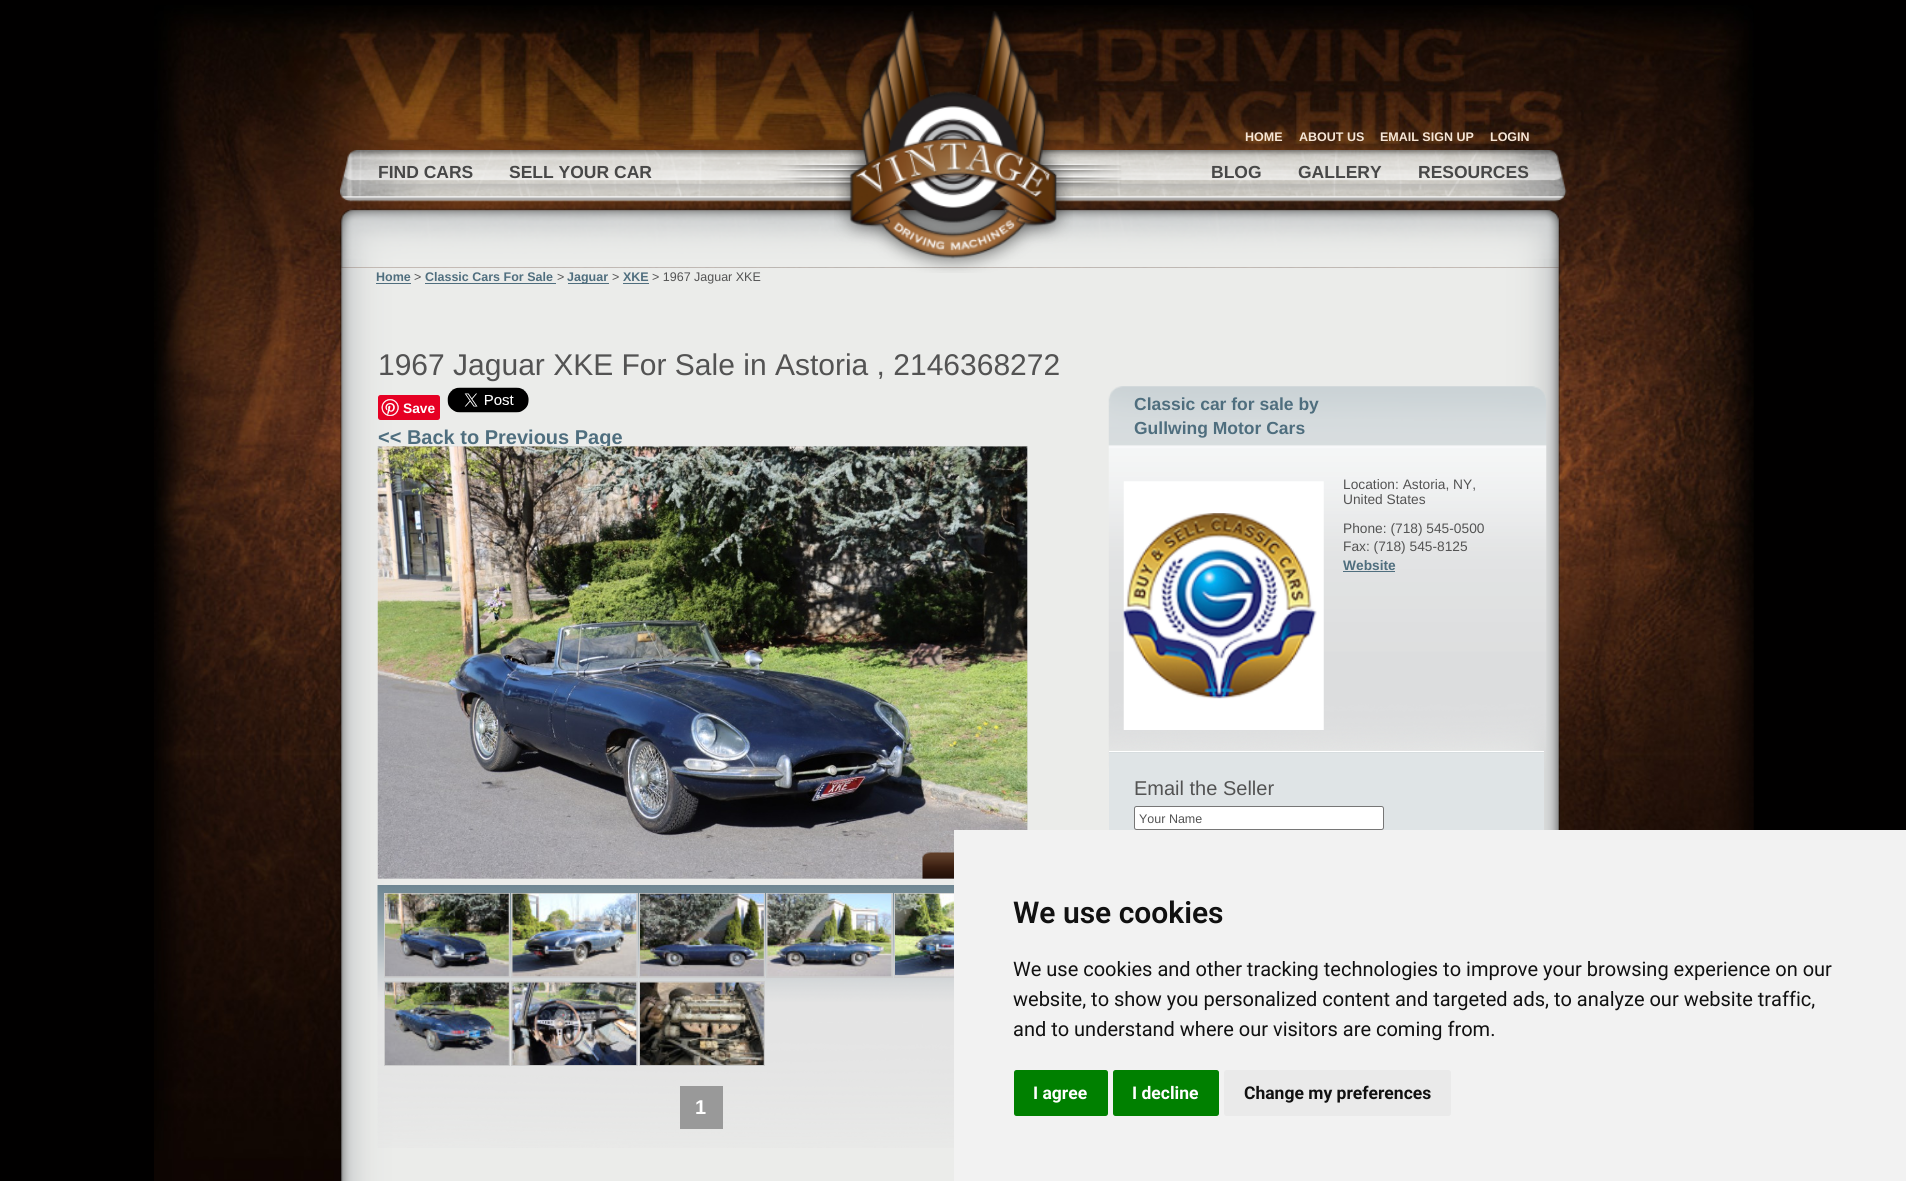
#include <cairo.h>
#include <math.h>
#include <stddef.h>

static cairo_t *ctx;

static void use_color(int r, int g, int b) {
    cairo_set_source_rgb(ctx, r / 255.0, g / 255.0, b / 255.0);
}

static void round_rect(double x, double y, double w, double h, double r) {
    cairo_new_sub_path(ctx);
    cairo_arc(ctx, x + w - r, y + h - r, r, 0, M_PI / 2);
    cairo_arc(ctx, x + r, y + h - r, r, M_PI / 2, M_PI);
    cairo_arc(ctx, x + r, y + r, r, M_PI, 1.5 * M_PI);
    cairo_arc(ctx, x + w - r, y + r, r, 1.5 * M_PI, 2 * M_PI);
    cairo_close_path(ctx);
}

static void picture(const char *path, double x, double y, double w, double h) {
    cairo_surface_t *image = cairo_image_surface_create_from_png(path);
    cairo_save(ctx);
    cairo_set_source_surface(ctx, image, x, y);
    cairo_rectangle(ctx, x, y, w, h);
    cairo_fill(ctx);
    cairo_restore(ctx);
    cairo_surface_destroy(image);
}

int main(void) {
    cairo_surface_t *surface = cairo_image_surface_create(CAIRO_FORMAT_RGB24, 1906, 1181);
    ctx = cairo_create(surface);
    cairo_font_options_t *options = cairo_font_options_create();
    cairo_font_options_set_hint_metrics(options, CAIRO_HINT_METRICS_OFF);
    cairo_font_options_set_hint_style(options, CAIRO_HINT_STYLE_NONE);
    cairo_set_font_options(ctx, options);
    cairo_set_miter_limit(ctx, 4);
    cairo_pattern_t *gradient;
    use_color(1, 0, 0);
    cairo_paint(ctx);
    picture("img1.png", 154, 5, 1600, 1176);
    picture("img3.png", 340, 150, 1227, 52);
    picture("img4.png", 340, 208, 1220, 60);
    picture("img5.png", 340, 267, 1220, 914);
    picture("img2.png", 834, 11, 239, 262);
    cairo_select_font_face(ctx, "Liberation Sans", CAIRO_FONT_SLANT_NORMAL, CAIRO_FONT_WEIGHT_BOLD);
    cairo_set_font_size(ctx, 12.5);
    use_color(246, 230, 215);
    cairo_move_to(ctx, 1245, 141);
    cairo_show_text(ctx, "HOME");
    cairo_move_to(ctx, 1299, 141);
    cairo_show_text(ctx, "ABOUT US");
    cairo_move_to(ctx, 1380, 141);
    cairo_show_text(ctx, "EMAIL SIGN UP");
    cairo_move_to(ctx, 1490, 141);
    cairo_show_text(ctx, "LOGIN");
    cairo_set_font_size(ctx, 17.5);
    use_color(72, 72, 72);
    cairo_move_to(ctx, 378, 178);
    cairo_show_text(ctx, "FIND CARS");
    cairo_move_to(ctx, 509, 178);
    cairo_show_text(ctx, "SELL YOUR CAR");
    cairo_move_to(ctx, 1211, 178);
    cairo_show_text(ctx, "BLOG");
    cairo_move_to(ctx, 1298, 178);
    cairo_show_text(ctx, "GALLERY");
    cairo_move_to(ctx, 1418, 178);
    cairo_show_text(ctx, "RESOURCES");
    cairo_set_font_size(ctx, 12.5);
    use_color(79, 110, 126);
    cairo_move_to(ctx, 376, 281);
    cairo_show_text(ctx, "Home");
    cairo_rectangle(ctx, 376, 283, 35, 1);
    cairo_fill(ctx);
    cairo_select_font_face(ctx, "Liberation Sans", CAIRO_FONT_SLANT_NORMAL, CAIRO_FONT_WEIGHT_NORMAL);
    use_color(83, 83, 83);
    cairo_move_to(ctx, 414, 281);
    cairo_show_text(ctx, ">");
    cairo_select_font_face(ctx, "Liberation Sans", CAIRO_FONT_SLANT_NORMAL, CAIRO_FONT_WEIGHT_BOLD);
    use_color(79, 110, 126);
    cairo_move_to(ctx, 425, 281);
    cairo_show_text(ctx, "Classic Cars For Sale");
    cairo_rectangle(ctx, 425, 283, 131, 1);
    cairo_fill(ctx);
    cairo_select_font_face(ctx, "Liberation Sans", CAIRO_FONT_SLANT_NORMAL, CAIRO_FONT_WEIGHT_NORMAL);
    use_color(83, 83, 83);
    cairo_move_to(ctx, 557, 281);
    cairo_show_text(ctx, ">");
    use_color(79, 110, 126);
    cairo_rectangle(ctx, 568, 283, 41, 1);
    cairo_fill(ctx);
    cairo_select_font_face(ctx, "Liberation Sans", CAIRO_FONT_SLANT_NORMAL, CAIRO_FONT_WEIGHT_BOLD);
    cairo_move_to(ctx, 567, 281);
    cairo_show_text(ctx, "Jaguar");
    cairo_select_font_face(ctx, "Liberation Sans", CAIRO_FONT_SLANT_NORMAL, CAIRO_FONT_WEIGHT_NORMAL);
    use_color(83, 83, 83);
    cairo_move_to(ctx, 612, 281);
    cairo_show_text(ctx, ">");
    cairo_select_font_face(ctx, "Liberation Sans", CAIRO_FONT_SLANT_NORMAL, CAIRO_FONT_WEIGHT_BOLD);
    use_color(79, 110, 126);
    cairo_move_to(ctx, 623, 281);
    cairo_show_text(ctx, "XKE");
    cairo_rectangle(ctx, 623, 283, 26, 1);
    cairo_fill(ctx);
    cairo_select_font_face(ctx, "Liberation Sans", CAIRO_FONT_SLANT_NORMAL, CAIRO_FONT_WEIGHT_NORMAL);
    use_color(83, 83, 83);
    cairo_move_to(ctx, 652, 281);
    cairo_show_text(ctx, "> 1967 Jaguar XKE");
    cairo_set_font_size(ctx, 30);
    cairo_move_to(ctx, 378, 375);
    cairo_show_text(ctx, "1967 Jaguar XKE For Sale in Astoria , 2146368272");
    use_color(230, 0, 35);
    round_rect(378, 395, 62, 25, 2.5);
    cairo_fill(ctx);
    picture("img6.png", 381, 399, 18, 17);
    cairo_select_font_face(ctx, "Liberation Sans", CAIRO_FONT_SLANT_NORMAL, CAIRO_FONT_WEIGHT_BOLD);
    cairo_set_font_size(ctx, 13.75);
    use_color(255, 255, 255);
    cairo_move_to(ctx, 403, 413);
    cairo_show_text(ctx, "Save");
    picture("img7.png", 447, 387, 82, 26);
    cairo_set_font_size(ctx, 20);
    use_color(79, 110, 126);
    cairo_move_to(ctx, 378, 444);
    cairo_show_text(ctx, "<< Back to Previous Page");
    use_color(221, 221, 221);
    cairo_rectangle(ctx, 378, 446, 650, 433);
    cairo_fill(ctx);
    picture("img8.png", 377, 446, 651, 433);
    picture("img9.png", 922, 852, 32, 27);
    picture("img10.png", 377, 885, 577, 263);
    use_color(204, 204, 204);
    cairo_rectangle(ctx, 384, 893, 126, 85);
    cairo_fill(ctx);
    picture("img11.png", 385, 893, 124, 84);
    cairo_rectangle(ctx, 511, 893, 127, 85);
    cairo_fill(ctx);
    picture("img12.png", 512, 893, 125, 84);
    cairo_rectangle(ctx, 639, 893, 126, 85);
    cairo_fill(ctx);
    picture("img13.png", 640, 893, 124, 84);
    cairo_rectangle(ctx, 766, 893, 127, 85);
    cairo_fill(ctx);
    picture("img14.png", 767, 893, 125, 84);
    cairo_rectangle(ctx, 894, 893, 60, 85);
    cairo_fill(ctx);
    picture("img15.png", 895, 893, 59, 84);
    cairo_rectangle(ctx, 384, 981, 126, 85);
    cairo_fill(ctx);
    picture("img16.png", 385, 982, 124, 83);
    cairo_rectangle(ctx, 511, 981, 127, 85);
    cairo_fill(ctx);
    picture("img17.png", 512, 982, 125, 83);
    cairo_rectangle(ctx, 639, 981, 126, 85);
    cairo_fill(ctx);
    picture("img18.png", 640, 982, 124, 83);
    use_color(153, 153, 153);
    cairo_rectangle(ctx, 680, 1086, 43, 43);
    cairo_fill(ctx);
    use_color(255, 255, 255);
    cairo_move_to(ctx, 695, 1114);
    cairo_show_text(ctx, "1");
    picture("img19.png", 1108, 386, 439, 382);
    cairo_set_font_size(ctx, 17.5);
    use_color(79, 110, 126);
    cairo_move_to(ctx, 1134, 410);
    cairo_show_text(ctx, "Classic car for sale by");
    cairo_move_to(ctx, 1134, 434);
    cairo_show_text(ctx, "Gullwing Motor Cars");
    picture("img20.png", 1123, 481, 201, 249);
    cairo_select_font_face(ctx, "Liberation Sans", CAIRO_FONT_SLANT_NORMAL, CAIRO_FONT_WEIGHT_NORMAL);
    cairo_set_font_size(ctx, 13.75);
    use_color(83, 83, 83);
    cairo_move_to(ctx, 1343, 489);
    cairo_show_text(ctx, "Location: Astoria, NY,");
    cairo_move_to(ctx, 1343, 504);
    cairo_show_text(ctx, "United States");
    cairo_move_to(ctx, 1343, 533);
    cairo_show_text(ctx, "Phone: (718) 545-0500");
    cairo_move_to(ctx, 1343, 551);
    cairo_show_text(ctx, "Fax: (718) 545-8125");
    cairo_select_font_face(ctx, "Liberation Sans", CAIRO_FONT_SLANT_NORMAL, CAIRO_FONT_WEIGHT_BOLD);
    use_color(79, 110, 126);
    cairo_move_to(ctx, 1343, 570);
    cairo_show_text(ctx, "Website");
    cairo_rectangle(ctx, 1343, 571, 52, 1);
    cairo_fill(ctx);
    gradient = cairo_pattern_create_linear(1326, 309, 1326, 753);
    cairo_pattern_add_color_stop_rgba(gradient, 0, 0.875, 0.894, 0.902, 1);
    cairo_pattern_add_color_stop_rgba(gradient, 0.5, 0.878, 0.898, 0.902, 1);
    cairo_pattern_add_color_stop_rgba(gradient, 1, 0.843, 0.867, 0.875, 1);
    cairo_set_source(ctx, gradient);
    cairo_pattern_destroy(gradient);
    cairo_rectangle(ctx, 1109, 752, 435, 1);
    cairo_fill(ctx);
    gradient = cairo_pattern_create_linear(1326, 753, 1326, 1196);
    cairo_pattern_add_color_stop_rgba(gradient, 0, 0.875, 0.894, 0.902, 1);
    cairo_pattern_add_color_stop_rgba(gradient, 0.5, 0.878, 0.898, 0.902, 1);
    cairo_pattern_add_color_stop_rgba(gradient, 1, 0.843, 0.867, 0.875, 1);
    cairo_set_source(ctx, gradient);
    cairo_pattern_destroy(gradient);
    cairo_rectangle(ctx, 1109, 753, 435, 77);
    cairo_fill(ctx);
    use_color(255, 255, 255);
    cairo_rectangle(ctx, 1109, 751, 435, 1);
    cairo_fill(ctx);
    cairo_select_font_face(ctx, "Liberation Sans", CAIRO_FONT_SLANT_NORMAL, CAIRO_FONT_WEIGHT_NORMAL);
    cairo_set_font_size(ctx, 20);
    use_color(83, 83, 83);
    cairo_move_to(ctx, 1134, 795);
    cairo_show_text(ctx, "Email the Seller");
    use_color(255, 255, 255);
    round_rect(1134.5, 806.5, 249, 23, 2);
    cairo_fill_preserve(ctx);
    use_color(118, 118, 118);
    cairo_set_line_width(ctx, 1);
    cairo_stroke(ctx);
    cairo_set_font_size(ctx, 12.5);
    use_color(83, 83, 83);
    cairo_move_to(ctx, 1139, 823);
    cairo_show_text(ctx, "Your Name");
    use_color(242, 242, 242);
    cairo_rectangle(ctx, 954, 830, 952, 351);
    cairo_fill(ctx);
    cairo_select_font_face(ctx, "Roboto SemiBold", CAIRO_FONT_SLANT_NORMAL, CAIRO_FONT_WEIGHT_NORMAL);
    cairo_set_font_size(ctx, 30);
    use_color(17, 17, 17);
    cairo_move_to(ctx, 1013, 923);
    cairo_show_text(ctx, "We use cookies");
    cairo_select_font_face(ctx, "Roboto", CAIRO_FONT_SLANT_NORMAL, CAIRO_FONT_WEIGHT_NORMAL);
    cairo_set_font_size(ctx, 20);
    cairo_move_to(ctx, 1013, 976);
    cairo_show_text(ctx, "We use cookies and other tracking technologies to improve your browsing experience on our");
    cairo_move_to(ctx, 1013, 1006);
    cairo_show_text(ctx, "website, to show you personalized content and targeted ads, to analyze our website traffic,");
    cairo_move_to(ctx, 1013, 1036);
    cairo_show_text(ctx, "and to understand where our visitors are coming from.");
    use_color(0, 128, 0);
    round_rect(1014, 1070, 94, 46, 2.5);
    cairo_fill(ctx);
    cairo_select_font_face(ctx, "Roboto", CAIRO_FONT_SLANT_NORMAL, CAIRO_FONT_WEIGHT_BOLD);
    cairo_set_font_size(ctx, 17.5);
    use_color(255, 255, 255);
    cairo_move_to(ctx, 1033, 1099);
    cairo_show_text(ctx, "I agree");
    use_color(0, 128, 0);
    round_rect(1113, 1070, 106, 46, 2.5);
    cairo_fill(ctx);
    use_color(255, 255, 255);
    cairo_move_to(ctx, 1132, 1099);
    cairo_show_text(ctx, "I decline");
    use_color(234, 234, 234);
    round_rect(1224, 1070, 227, 46, 2.5);
    cairo_fill(ctx);
    use_color(17, 17, 17);
    cairo_move_to(ctx, 1244, 1099);
    cairo_show_text(ctx, "Change my preferences");
    cairo_surface_write_to_png(surface, "result.png");
    cairo_font_options_destroy(options);
    cairo_destroy(ctx);
    cairo_surface_destroy(surface);
    return 0;
}
